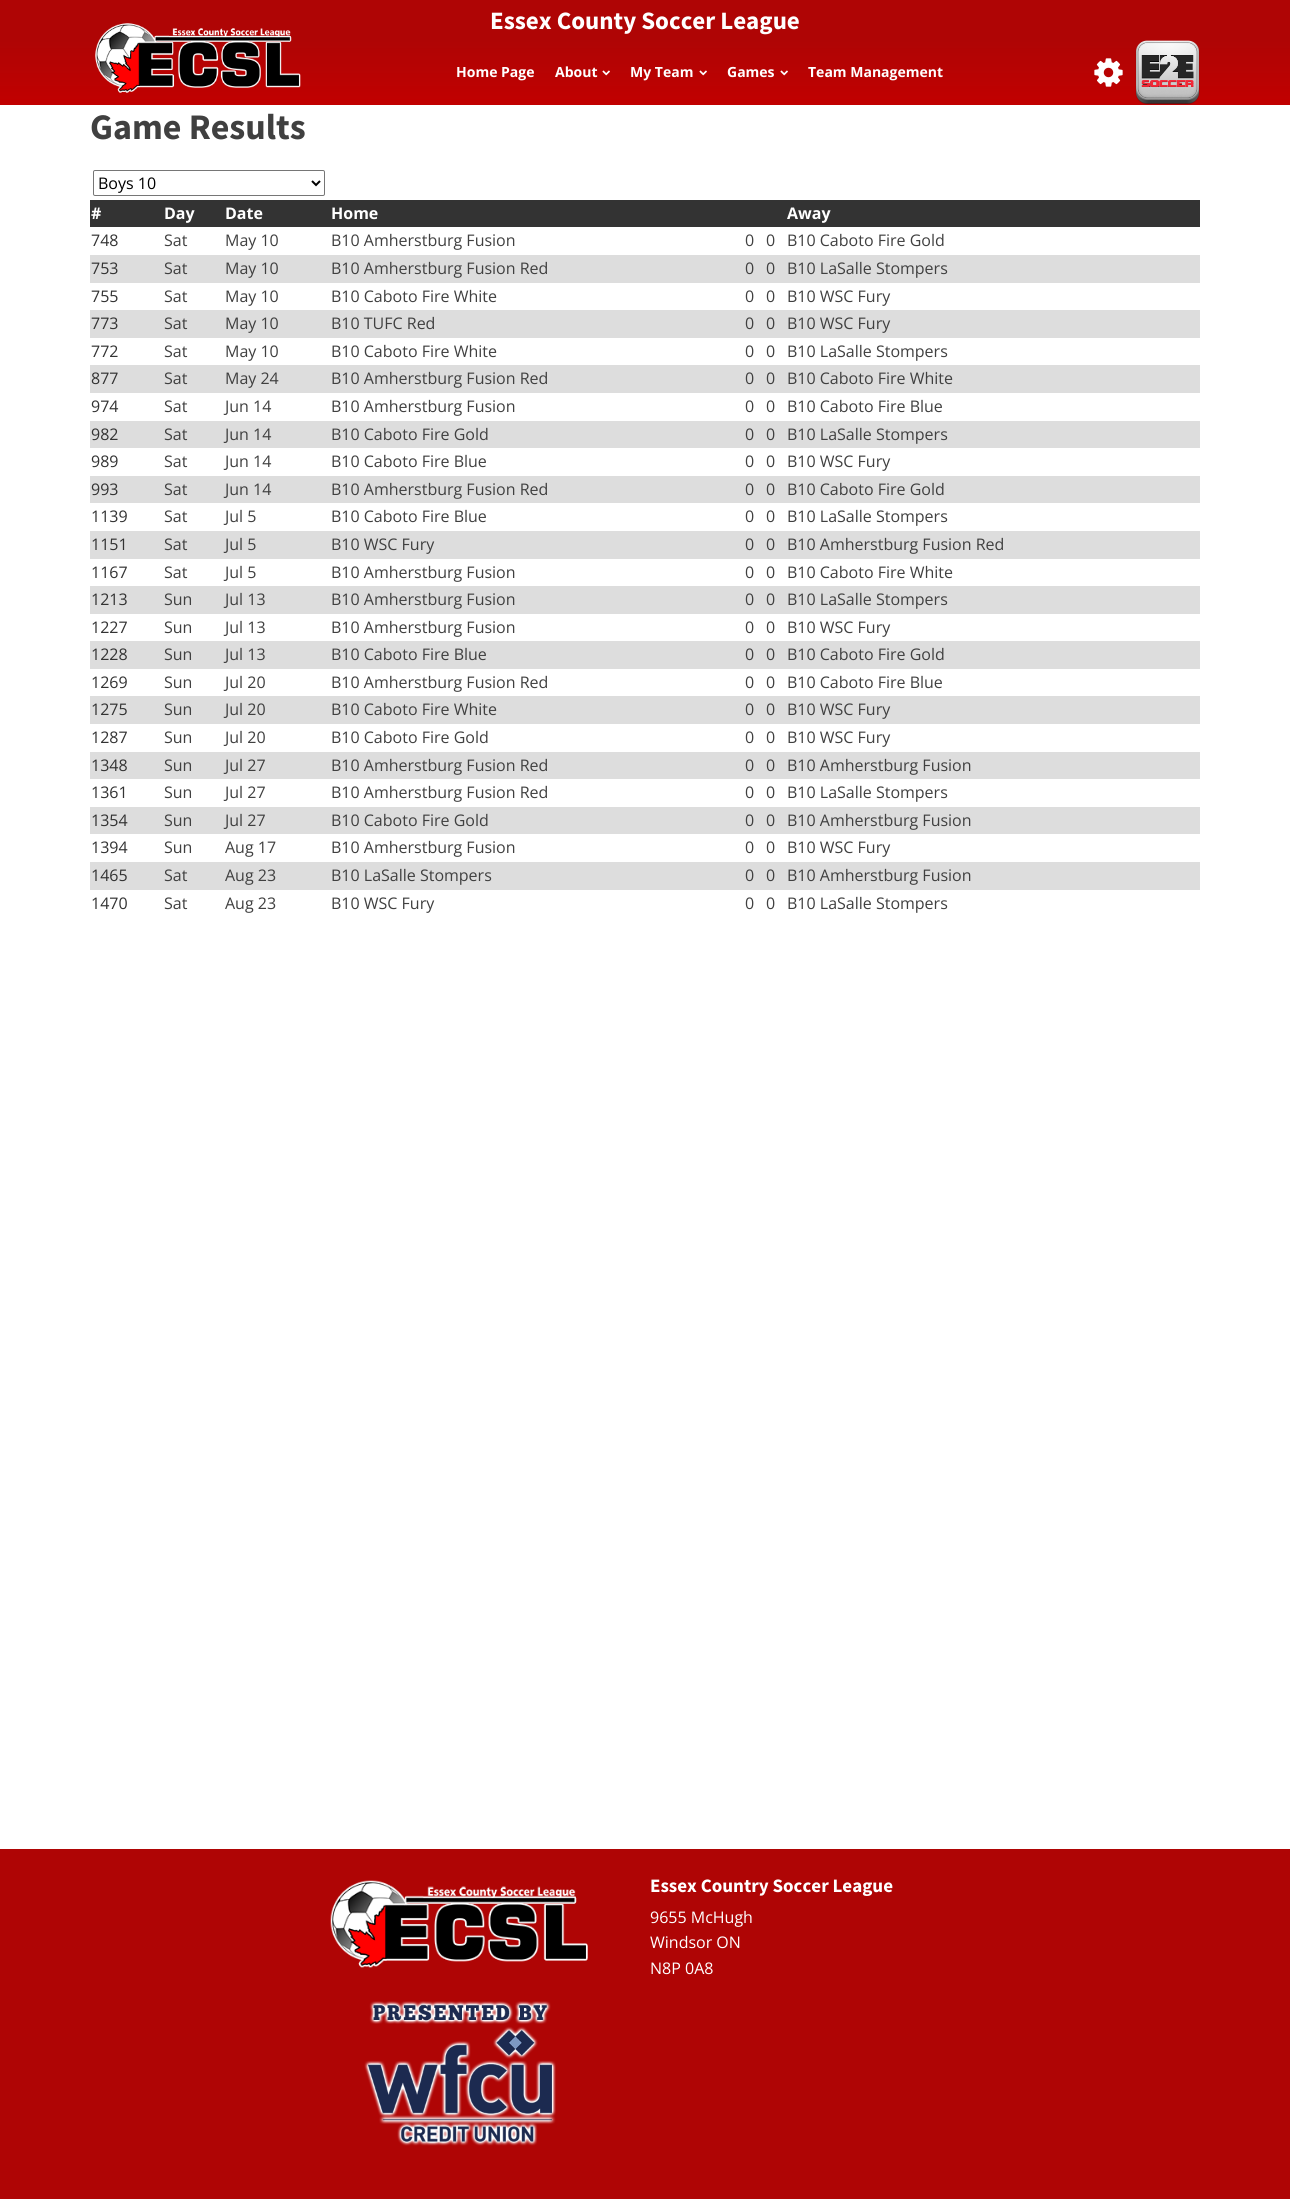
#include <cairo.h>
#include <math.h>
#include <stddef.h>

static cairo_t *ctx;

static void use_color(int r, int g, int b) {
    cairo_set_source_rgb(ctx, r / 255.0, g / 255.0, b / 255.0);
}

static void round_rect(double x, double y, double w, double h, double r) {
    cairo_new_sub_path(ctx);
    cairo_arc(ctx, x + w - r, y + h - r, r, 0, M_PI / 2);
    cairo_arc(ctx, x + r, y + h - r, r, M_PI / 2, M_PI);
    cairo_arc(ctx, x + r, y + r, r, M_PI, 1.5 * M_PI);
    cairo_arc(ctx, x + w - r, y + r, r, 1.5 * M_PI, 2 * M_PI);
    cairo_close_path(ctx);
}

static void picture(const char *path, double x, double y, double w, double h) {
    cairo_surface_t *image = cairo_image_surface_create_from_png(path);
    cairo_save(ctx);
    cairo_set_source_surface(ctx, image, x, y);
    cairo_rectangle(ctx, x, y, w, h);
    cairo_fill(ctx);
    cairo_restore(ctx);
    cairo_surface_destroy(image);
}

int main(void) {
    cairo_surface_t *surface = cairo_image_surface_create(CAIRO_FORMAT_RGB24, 1290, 2199);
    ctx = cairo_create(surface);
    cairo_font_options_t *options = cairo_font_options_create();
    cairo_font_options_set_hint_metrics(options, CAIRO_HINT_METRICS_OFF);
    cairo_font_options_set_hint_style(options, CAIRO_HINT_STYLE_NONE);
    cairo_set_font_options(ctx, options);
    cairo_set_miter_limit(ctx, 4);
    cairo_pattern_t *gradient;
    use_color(255, 255, 255);
    cairo_paint(ctx);
    use_color(175, 5, 5);
    cairo_rectangle(ctx, 0, 0, 1290, 40);
    cairo_fill(ctx);
    cairo_select_font_face(ctx, "Source Sans Pro", CAIRO_FONT_SLANT_NORMAL, CAIRO_FONT_WEIGHT_BOLD);
    cairo_set_font_size(ctx, 25);
    use_color(255, 255, 255);
    cairo_move_to(ctx, 490, 29);
    cairo_show_text(ctx, "Essex County Soccer League");
    gradient = cairo_pattern_create_linear(645, 40, 645, 105);
    cairo_pattern_add_color_stop_rgba(gradient, 0, 0.686, 0.02, 0.02, 1);
    cairo_pattern_add_color_stop_rgba(gradient, 1, 0.757, 0, 0, 1);
    cairo_set_source(ctx, gradient);
    cairo_pattern_destroy(gradient);
    cairo_rectangle(ctx, 0, 40, 1290, 65);
    cairo_fill(ctx);
    picture("img1.png", 95, 23, 206, 70);
    cairo_select_font_face(ctx, "Open Sans", CAIRO_FONT_SLANT_NORMAL, CAIRO_FONT_WEIGHT_BOLD);
    cairo_set_font_size(ctx, 14);
    use_color(255, 255, 255);
    cairo_move_to(ctx, 456, 77);
    cairo_show_text(ctx, "Home Page");
    cairo_move_to(ctx, 555, 77);
    cairo_show_text(ctx, "About");
    picture("img2.png", 602, 70, 8, 6);
    cairo_move_to(ctx, 630, 77);
    cairo_show_text(ctx, "My Team");
    picture("img2.png", 699, 70, 8, 6);
    cairo_move_to(ctx, 727, 77);
    cairo_show_text(ctx, "Games");
    picture("img2.png", 780, 70, 8, 6);
    cairo_move_to(ctx, 808, 77);
    cairo_show_text(ctx, "Team Management");
    picture("img3.png", 1094, 58, 29, 29);
    picture("img4.png", 1135, 40, 65, 65);
    cairo_select_font_face(ctx, "Source Sans Pro", CAIRO_FONT_SLANT_NORMAL, CAIRO_FONT_WEIGHT_BOLD);
    cairo_set_font_size(ctx, 36);
    use_color(64, 64, 64);
    cairo_move_to(ctx, 90, 139);
    cairo_show_text(ctx, "Game Results");
    round_rect(93.5, 170.5, 231, 25, 1.5);
    use_color(118, 118, 118);
    cairo_set_line_width(ctx, 1);
    cairo_stroke(ctx);
    cairo_new_path(ctx);
    cairo_move_to(ctx, 312, 181);
    cairo_line_to(ctx, 316, 185);
    cairo_line_to(ctx, 320, 181);
    use_color(0, 0, 0);
    cairo_set_line_width(ctx, 2);
    cairo_stroke(ctx);
    cairo_select_font_face(ctx, "Open Sans", CAIRO_FONT_SLANT_NORMAL, CAIRO_FONT_WEIGHT_NORMAL);
    cairo_set_font_size(ctx, 16);
    cairo_move_to(ctx, 98, 189);
    cairo_show_text(ctx, "Boys 10");
    use_color(51, 51, 51);
    cairo_rectangle(ctx, 90, 200, 1110, 27);
    cairo_fill(ctx);
    cairo_select_font_face(ctx, "Open Sans", CAIRO_FONT_SLANT_NORMAL, CAIRO_FONT_WEIGHT_BOLD);
    use_color(255, 255, 255);
    cairo_move_to(ctx, 91, 219);
    cairo_show_text(ctx, "#");
    cairo_move_to(ctx, 164, 219);
    cairo_show_text(ctx, "Day");
    cairo_move_to(ctx, 225, 219);
    cairo_show_text(ctx, "Date");
    cairo_move_to(ctx, 331, 219);
    cairo_show_text(ctx, "Home");
    cairo_move_to(ctx, 787, 219);
    cairo_show_text(ctx, "Away");
    cairo_select_font_face(ctx, "Open Sans", CAIRO_FONT_SLANT_NORMAL, CAIRO_FONT_WEIGHT_NORMAL);
    use_color(51, 51, 51);
    cairo_move_to(ctx, 91, 246);
    cairo_show_text(ctx, "748");
    use_color(64, 64, 64);
    cairo_move_to(ctx, 164, 246);
    cairo_show_text(ctx, "Sat");
    cairo_move_to(ctx, 225, 246);
    cairo_show_text(ctx, "May 10");
    cairo_move_to(ctx, 331, 246);
    cairo_show_text(ctx, "B10 Amherstburg Fusion");
    cairo_move_to(ctx, 745, 246);
    cairo_show_text(ctx, "0");
    cairo_move_to(ctx, 766, 246);
    cairo_show_text(ctx, "0");
    cairo_move_to(ctx, 787, 246);
    cairo_show_text(ctx, "B10 Caboto Fire Gold");
    use_color(221, 221, 221);
    cairo_rectangle(ctx, 90, 255, 1110, 28);
    cairo_fill(ctx);
    use_color(51, 51, 51);
    cairo_move_to(ctx, 91, 274);
    cairo_show_text(ctx, "753");
    use_color(64, 64, 64);
    cairo_move_to(ctx, 164, 274);
    cairo_show_text(ctx, "Sat");
    cairo_move_to(ctx, 225, 274);
    cairo_show_text(ctx, "May 10");
    cairo_move_to(ctx, 331, 274);
    cairo_show_text(ctx, "B10 Amherstburg Fusion Red");
    cairo_move_to(ctx, 745, 274);
    cairo_show_text(ctx, "0");
    cairo_move_to(ctx, 766, 274);
    cairo_show_text(ctx, "0");
    cairo_move_to(ctx, 787, 274);
    cairo_show_text(ctx, "B10 LaSalle Stompers");
    use_color(51, 51, 51);
    cairo_move_to(ctx, 91, 302);
    cairo_show_text(ctx, "755");
    use_color(64, 64, 64);
    cairo_move_to(ctx, 164, 302);
    cairo_show_text(ctx, "Sat");
    cairo_move_to(ctx, 225, 302);
    cairo_show_text(ctx, "May 10");
    cairo_move_to(ctx, 331, 302);
    cairo_show_text(ctx, "B10 Caboto Fire White");
    cairo_move_to(ctx, 745, 302);
    cairo_show_text(ctx, "0");
    cairo_move_to(ctx, 766, 302);
    cairo_show_text(ctx, "0");
    cairo_move_to(ctx, 787, 302);
    cairo_show_text(ctx, "B10 WSC Fury");
    use_color(221, 221, 221);
    cairo_rectangle(ctx, 90, 310, 1110, 28);
    cairo_fill(ctx);
    use_color(51, 51, 51);
    cairo_move_to(ctx, 91, 329);
    cairo_show_text(ctx, "773");
    use_color(64, 64, 64);
    cairo_move_to(ctx, 164, 329);
    cairo_show_text(ctx, "Sat");
    cairo_move_to(ctx, 225, 329);
    cairo_show_text(ctx, "May 10");
    cairo_move_to(ctx, 331, 329);
    cairo_show_text(ctx, "B10 TUFC Red");
    cairo_move_to(ctx, 745, 329);
    cairo_show_text(ctx, "0");
    cairo_move_to(ctx, 766, 329);
    cairo_show_text(ctx, "0");
    cairo_move_to(ctx, 787, 329);
    cairo_show_text(ctx, "B10 WSC Fury");
    use_color(51, 51, 51);
    cairo_move_to(ctx, 91, 357);
    cairo_show_text(ctx, "772");
    use_color(64, 64, 64);
    cairo_move_to(ctx, 164, 357);
    cairo_show_text(ctx, "Sat");
    cairo_move_to(ctx, 225, 357);
    cairo_show_text(ctx, "May 10");
    cairo_move_to(ctx, 331, 357);
    cairo_show_text(ctx, "B10 Caboto Fire White");
    cairo_move_to(ctx, 745, 357);
    cairo_show_text(ctx, "0");
    cairo_move_to(ctx, 766, 357);
    cairo_show_text(ctx, "0");
    cairo_move_to(ctx, 787, 357);
    cairo_show_text(ctx, "B10 LaSalle Stompers");
    use_color(221, 221, 221);
    cairo_rectangle(ctx, 90, 365, 1110, 28);
    cairo_fill(ctx);
    use_color(51, 51, 51);
    cairo_move_to(ctx, 91, 384);
    cairo_show_text(ctx, "877");
    use_color(64, 64, 64);
    cairo_move_to(ctx, 164, 384);
    cairo_show_text(ctx, "Sat");
    cairo_move_to(ctx, 225, 384);
    cairo_show_text(ctx, "May 24");
    cairo_move_to(ctx, 331, 384);
    cairo_show_text(ctx, "B10 Amherstburg Fusion Red");
    cairo_move_to(ctx, 745, 384);
    cairo_show_text(ctx, "0");
    cairo_move_to(ctx, 766, 384);
    cairo_show_text(ctx, "0");
    cairo_move_to(ctx, 787, 384);
    cairo_show_text(ctx, "B10 Caboto Fire White");
    use_color(51, 51, 51);
    cairo_move_to(ctx, 91, 412);
    cairo_show_text(ctx, "974");
    use_color(64, 64, 64);
    cairo_move_to(ctx, 164, 412);
    cairo_show_text(ctx, "Sat");
    cairo_move_to(ctx, 225, 412);
    cairo_show_text(ctx, "Jun 14");
    cairo_move_to(ctx, 331, 412);
    cairo_show_text(ctx, "B10 Amherstburg Fusion");
    cairo_move_to(ctx, 745, 412);
    cairo_show_text(ctx, "0");
    cairo_move_to(ctx, 766, 412);
    cairo_show_text(ctx, "0");
    cairo_move_to(ctx, 787, 412);
    cairo_show_text(ctx, "B10 Caboto Fire Blue");
    use_color(221, 221, 221);
    cairo_rectangle(ctx, 90, 421, 1110, 27);
    cairo_fill(ctx);
    use_color(51, 51, 51);
    cairo_move_to(ctx, 91, 440);
    cairo_show_text(ctx, "982");
    use_color(64, 64, 64);
    cairo_move_to(ctx, 164, 440);
    cairo_show_text(ctx, "Sat");
    cairo_move_to(ctx, 225, 440);
    cairo_show_text(ctx, "Jun 14");
    cairo_move_to(ctx, 331, 440);
    cairo_show_text(ctx, "B10 Caboto Fire Gold");
    cairo_move_to(ctx, 745, 440);
    cairo_show_text(ctx, "0");
    cairo_move_to(ctx, 766, 440);
    cairo_show_text(ctx, "0");
    cairo_move_to(ctx, 787, 440);
    cairo_show_text(ctx, "B10 LaSalle Stompers");
    use_color(51, 51, 51);
    cairo_move_to(ctx, 91, 467);
    cairo_show_text(ctx, "989");
    use_color(64, 64, 64);
    cairo_move_to(ctx, 164, 467);
    cairo_show_text(ctx, "Sat");
    cairo_move_to(ctx, 225, 467);
    cairo_show_text(ctx, "Jun 14");
    cairo_move_to(ctx, 331, 467);
    cairo_show_text(ctx, "B10 Caboto Fire Blue");
    cairo_move_to(ctx, 745, 467);
    cairo_show_text(ctx, "0");
    cairo_move_to(ctx, 766, 467);
    cairo_show_text(ctx, "0");
    cairo_move_to(ctx, 787, 467);
    cairo_show_text(ctx, "B10 WSC Fury");
    use_color(221, 221, 221);
    cairo_rectangle(ctx, 90, 476, 1110, 27);
    cairo_fill(ctx);
    use_color(51, 51, 51);
    cairo_move_to(ctx, 91, 495);
    cairo_show_text(ctx, "993");
    use_color(64, 64, 64);
    cairo_move_to(ctx, 164, 495);
    cairo_show_text(ctx, "Sat");
    cairo_move_to(ctx, 225, 495);
    cairo_show_text(ctx, "Jun 14");
    cairo_move_to(ctx, 331, 495);
    cairo_show_text(ctx, "B10 Amherstburg Fusion Red");
    cairo_move_to(ctx, 745, 495);
    cairo_show_text(ctx, "0");
    cairo_move_to(ctx, 766, 495);
    cairo_show_text(ctx, "0");
    cairo_move_to(ctx, 787, 495);
    cairo_show_text(ctx, "B10 Caboto Fire Gold");
    use_color(51, 51, 51);
    cairo_move_to(ctx, 91, 522);
    cairo_show_text(ctx, "1139");
    use_color(64, 64, 64);
    cairo_move_to(ctx, 164, 522);
    cairo_show_text(ctx, "Sat");
    cairo_move_to(ctx, 225, 522);
    cairo_show_text(ctx, "Jul 5");
    cairo_move_to(ctx, 331, 522);
    cairo_show_text(ctx, "B10 Caboto Fire Blue");
    cairo_move_to(ctx, 745, 522);
    cairo_show_text(ctx, "0");
    cairo_move_to(ctx, 766, 522);
    cairo_show_text(ctx, "0");
    cairo_move_to(ctx, 787, 522);
    cairo_show_text(ctx, "B10 LaSalle Stompers");
    use_color(221, 221, 221);
    cairo_rectangle(ctx, 90, 531, 1110, 28);
    cairo_fill(ctx);
    use_color(51, 51, 51);
    cairo_move_to(ctx, 91, 550);
    cairo_show_text(ctx, "1151");
    use_color(64, 64, 64);
    cairo_move_to(ctx, 164, 550);
    cairo_show_text(ctx, "Sat");
    cairo_move_to(ctx, 225, 550);
    cairo_show_text(ctx, "Jul 5");
    cairo_move_to(ctx, 331, 550);
    cairo_show_text(ctx, "B10 WSC Fury");
    cairo_move_to(ctx, 745, 550);
    cairo_show_text(ctx, "0");
    cairo_move_to(ctx, 766, 550);
    cairo_show_text(ctx, "0");
    cairo_move_to(ctx, 787, 550);
    cairo_show_text(ctx, "B10 Amherstburg Fusion Red");
    use_color(51, 51, 51);
    cairo_move_to(ctx, 91, 578);
    cairo_show_text(ctx, "1167");
    use_color(64, 64, 64);
    cairo_move_to(ctx, 164, 578);
    cairo_show_text(ctx, "Sat");
    cairo_move_to(ctx, 225, 578);
    cairo_show_text(ctx, "Jul 5");
    cairo_move_to(ctx, 331, 578);
    cairo_show_text(ctx, "B10 Amherstburg Fusion");
    cairo_move_to(ctx, 745, 578);
    cairo_show_text(ctx, "0");
    cairo_move_to(ctx, 766, 578);
    cairo_show_text(ctx, "0");
    cairo_move_to(ctx, 787, 578);
    cairo_show_text(ctx, "B10 Caboto Fire White");
    use_color(221, 221, 221);
    cairo_rectangle(ctx, 90, 586, 1110, 28);
    cairo_fill(ctx);
    use_color(51, 51, 51);
    cairo_move_to(ctx, 91, 605);
    cairo_show_text(ctx, "1213");
    use_color(64, 64, 64);
    cairo_move_to(ctx, 164, 605);
    cairo_show_text(ctx, "Sun");
    cairo_move_to(ctx, 225, 605);
    cairo_show_text(ctx, "Jul 13");
    cairo_move_to(ctx, 331, 605);
    cairo_show_text(ctx, "B10 Amherstburg Fusion");
    cairo_move_to(ctx, 745, 605);
    cairo_show_text(ctx, "0");
    cairo_move_to(ctx, 766, 605);
    cairo_show_text(ctx, "0");
    cairo_move_to(ctx, 787, 605);
    cairo_show_text(ctx, "B10 LaSalle Stompers");
    use_color(51, 51, 51);
    cairo_move_to(ctx, 91, 633);
    cairo_show_text(ctx, "1227");
    use_color(64, 64, 64);
    cairo_move_to(ctx, 164, 633);
    cairo_show_text(ctx, "Sun");
    cairo_move_to(ctx, 225, 633);
    cairo_show_text(ctx, "Jul 13");
    cairo_move_to(ctx, 331, 633);
    cairo_show_text(ctx, "B10 Amherstburg Fusion");
    cairo_move_to(ctx, 745, 633);
    cairo_show_text(ctx, "0");
    cairo_move_to(ctx, 766, 633);
    cairo_show_text(ctx, "0");
    cairo_move_to(ctx, 787, 633);
    cairo_show_text(ctx, "B10 WSC Fury");
    use_color(221, 221, 221);
    cairo_rectangle(ctx, 90, 641, 1110, 28);
    cairo_fill(ctx);
    use_color(51, 51, 51);
    cairo_move_to(ctx, 91, 660);
    cairo_show_text(ctx, "1228");
    use_color(64, 64, 64);
    cairo_move_to(ctx, 164, 660);
    cairo_show_text(ctx, "Sun");
    cairo_move_to(ctx, 225, 660);
    cairo_show_text(ctx, "Jul 13");
    cairo_move_to(ctx, 331, 660);
    cairo_show_text(ctx, "B10 Caboto Fire Blue");
    cairo_move_to(ctx, 745, 660);
    cairo_show_text(ctx, "0");
    cairo_move_to(ctx, 766, 660);
    cairo_show_text(ctx, "0");
    cairo_move_to(ctx, 787, 660);
    cairo_show_text(ctx, "B10 Caboto Fire Gold");
    use_color(51, 51, 51);
    cairo_move_to(ctx, 91, 688);
    cairo_show_text(ctx, "1269");
    use_color(64, 64, 64);
    cairo_move_to(ctx, 164, 688);
    cairo_show_text(ctx, "Sun");
    cairo_move_to(ctx, 225, 688);
    cairo_show_text(ctx, "Jul 20");
    cairo_move_to(ctx, 331, 688);
    cairo_show_text(ctx, "B10 Amherstburg Fusion Red");
    cairo_move_to(ctx, 745, 688);
    cairo_show_text(ctx, "0");
    cairo_move_to(ctx, 766, 688);
    cairo_show_text(ctx, "0");
    cairo_move_to(ctx, 787, 688);
    cairo_show_text(ctx, "B10 Caboto Fire Blue");
    use_color(221, 221, 221);
    cairo_rectangle(ctx, 90, 696, 1110, 28);
    cairo_fill(ctx);
    use_color(51, 51, 51);
    cairo_move_to(ctx, 91, 715);
    cairo_show_text(ctx, "1275");
    use_color(64, 64, 64);
    cairo_move_to(ctx, 164, 715);
    cairo_show_text(ctx, "Sun");
    cairo_move_to(ctx, 225, 715);
    cairo_show_text(ctx, "Jul 20");
    cairo_move_to(ctx, 331, 715);
    cairo_show_text(ctx, "B10 Caboto Fire White");
    cairo_move_to(ctx, 745, 715);
    cairo_show_text(ctx, "0");
    cairo_move_to(ctx, 766, 715);
    cairo_show_text(ctx, "0");
    cairo_move_to(ctx, 787, 715);
    cairo_show_text(ctx, "B10 WSC Fury");
    use_color(51, 51, 51);
    cairo_move_to(ctx, 91, 743);
    cairo_show_text(ctx, "1287");
    use_color(64, 64, 64);
    cairo_move_to(ctx, 164, 743);
    cairo_show_text(ctx, "Sun");
    cairo_move_to(ctx, 225, 743);
    cairo_show_text(ctx, "Jul 20");
    cairo_move_to(ctx, 331, 743);
    cairo_show_text(ctx, "B10 Caboto Fire Gold");
    cairo_move_to(ctx, 745, 743);
    cairo_show_text(ctx, "0");
    cairo_move_to(ctx, 766, 743);
    cairo_show_text(ctx, "0");
    cairo_move_to(ctx, 787, 743);
    cairo_show_text(ctx, "B10 WSC Fury");
    use_color(221, 221, 221);
    cairo_rectangle(ctx, 90, 752, 1110, 27);
    cairo_fill(ctx);
    use_color(51, 51, 51);
    cairo_move_to(ctx, 91, 771);
    cairo_show_text(ctx, "1348");
    use_color(64, 64, 64);
    cairo_move_to(ctx, 164, 771);
    cairo_show_text(ctx, "Sun");
    cairo_move_to(ctx, 225, 771);
    cairo_show_text(ctx, "Jul 27");
    cairo_move_to(ctx, 331, 771);
    cairo_show_text(ctx, "B10 Amherstburg Fusion Red");
    cairo_move_to(ctx, 745, 771);
    cairo_show_text(ctx, "0");
    cairo_move_to(ctx, 766, 771);
    cairo_show_text(ctx, "0");
    cairo_move_to(ctx, 787, 771);
    cairo_show_text(ctx, "B10 Amherstburg Fusion");
    use_color(51, 51, 51);
    cairo_move_to(ctx, 91, 798);
    cairo_show_text(ctx, "1361");
    use_color(64, 64, 64);
    cairo_move_to(ctx, 164, 798);
    cairo_show_text(ctx, "Sun");
    cairo_move_to(ctx, 225, 798);
    cairo_show_text(ctx, "Jul 27");
    cairo_move_to(ctx, 331, 798);
    cairo_show_text(ctx, "B10 Amherstburg Fusion Red");
    cairo_move_to(ctx, 745, 798);
    cairo_show_text(ctx, "0");
    cairo_move_to(ctx, 766, 798);
    cairo_show_text(ctx, "0");
    cairo_move_to(ctx, 787, 798);
    cairo_show_text(ctx, "B10 LaSalle Stompers");
    use_color(221, 221, 221);
    cairo_rectangle(ctx, 90, 807, 1110, 27);
    cairo_fill(ctx);
    use_color(51, 51, 51);
    cairo_move_to(ctx, 91, 826);
    cairo_show_text(ctx, "1354");
    use_color(64, 64, 64);
    cairo_move_to(ctx, 164, 826);
    cairo_show_text(ctx, "Sun");
    cairo_move_to(ctx, 225, 826);
    cairo_show_text(ctx, "Jul 27");
    cairo_move_to(ctx, 331, 826);
    cairo_show_text(ctx, "B10 Caboto Fire Gold");
    cairo_move_to(ctx, 745, 826);
    cairo_show_text(ctx, "0");
    cairo_move_to(ctx, 766, 826);
    cairo_show_text(ctx, "0");
    cairo_move_to(ctx, 787, 826);
    cairo_show_text(ctx, "B10 Amherstburg Fusion");
    use_color(51, 51, 51);
    cairo_move_to(ctx, 91, 853);
    cairo_show_text(ctx, "1394");
    use_color(64, 64, 64);
    cairo_move_to(ctx, 164, 853);
    cairo_show_text(ctx, "Sun");
    cairo_move_to(ctx, 225, 853);
    cairo_show_text(ctx, "Aug 17");
    cairo_move_to(ctx, 331, 853);
    cairo_show_text(ctx, "B10 Amherstburg Fusion");
    cairo_move_to(ctx, 745, 853);
    cairo_show_text(ctx, "0");
    cairo_move_to(ctx, 766, 853);
    cairo_show_text(ctx, "0");
    cairo_move_to(ctx, 787, 853);
    cairo_show_text(ctx, "B10 WSC Fury");
    use_color(221, 221, 221);
    cairo_rectangle(ctx, 90, 862, 1110, 28);
    cairo_fill(ctx);
    use_color(51, 51, 51);
    cairo_move_to(ctx, 91, 881);
    cairo_show_text(ctx, "1465");
    use_color(64, 64, 64);
    cairo_move_to(ctx, 164, 881);
    cairo_show_text(ctx, "Sat");
    cairo_move_to(ctx, 225, 881);
    cairo_show_text(ctx, "Aug 23");
    cairo_move_to(ctx, 331, 881);
    cairo_show_text(ctx, "B10 LaSalle Stompers");
    cairo_move_to(ctx, 745, 881);
    cairo_show_text(ctx, "0");
    cairo_move_to(ctx, 766, 881);
    cairo_show_text(ctx, "0");
    cairo_move_to(ctx, 787, 881);
    cairo_show_text(ctx, "B10 Amherstburg Fusion");
    use_color(51, 51, 51);
    cairo_move_to(ctx, 91, 909);
    cairo_show_text(ctx, "1470");
    use_color(64, 64, 64);
    cairo_move_to(ctx, 164, 909);
    cairo_show_text(ctx, "Sat");
    cairo_move_to(ctx, 225, 909);
    cairo_show_text(ctx, "Aug 23");
    cairo_move_to(ctx, 331, 909);
    cairo_show_text(ctx, "B10 WSC Fury");
    cairo_move_to(ctx, 745, 909);
    cairo_show_text(ctx, "0");
    cairo_move_to(ctx, 766, 909);
    cairo_show_text(ctx, "0");
    cairo_move_to(ctx, 787, 909);
    cairo_show_text(ctx, "B10 LaSalle Stompers");
    use_color(175, 5, 5);
    cairo_rectangle(ctx, 0, 1849, 1290, 350);
    cairo_fill(ctx);
    picture("img5.png", 330, 1880, 258, 88);
    picture("img6.png", 364, 2001, 192, 145);
    cairo_select_font_face(ctx, "Source Sans Pro", CAIRO_FONT_SLANT_NORMAL, CAIRO_FONT_WEIGHT_BOLD);
    cairo_set_font_size(ctx, 19);
    use_color(255, 255, 255);
    cairo_move_to(ctx, 650, 1892);
    cairo_show_text(ctx, "Essex Country Soccer League");
    cairo_select_font_face(ctx, "Open Sans", CAIRO_FONT_SLANT_NORMAL, CAIRO_FONT_WEIGHT_NORMAL);
    cairo_set_font_size(ctx, 16);
    cairo_move_to(ctx, 650, 1923);
    cairo_show_text(ctx, "9655 McHugh");
    cairo_move_to(ctx, 650, 1948);
    cairo_show_text(ctx, "Windsor ON");
    cairo_move_to(ctx, 650, 1974);
    cairo_show_text(ctx, "N8P 0A8");
    cairo_surface_write_to_png(surface, "result.png");
    cairo_font_options_destroy(options);
    cairo_destroy(ctx);
    cairo_surface_destroy(surface);
    return 0;
}
